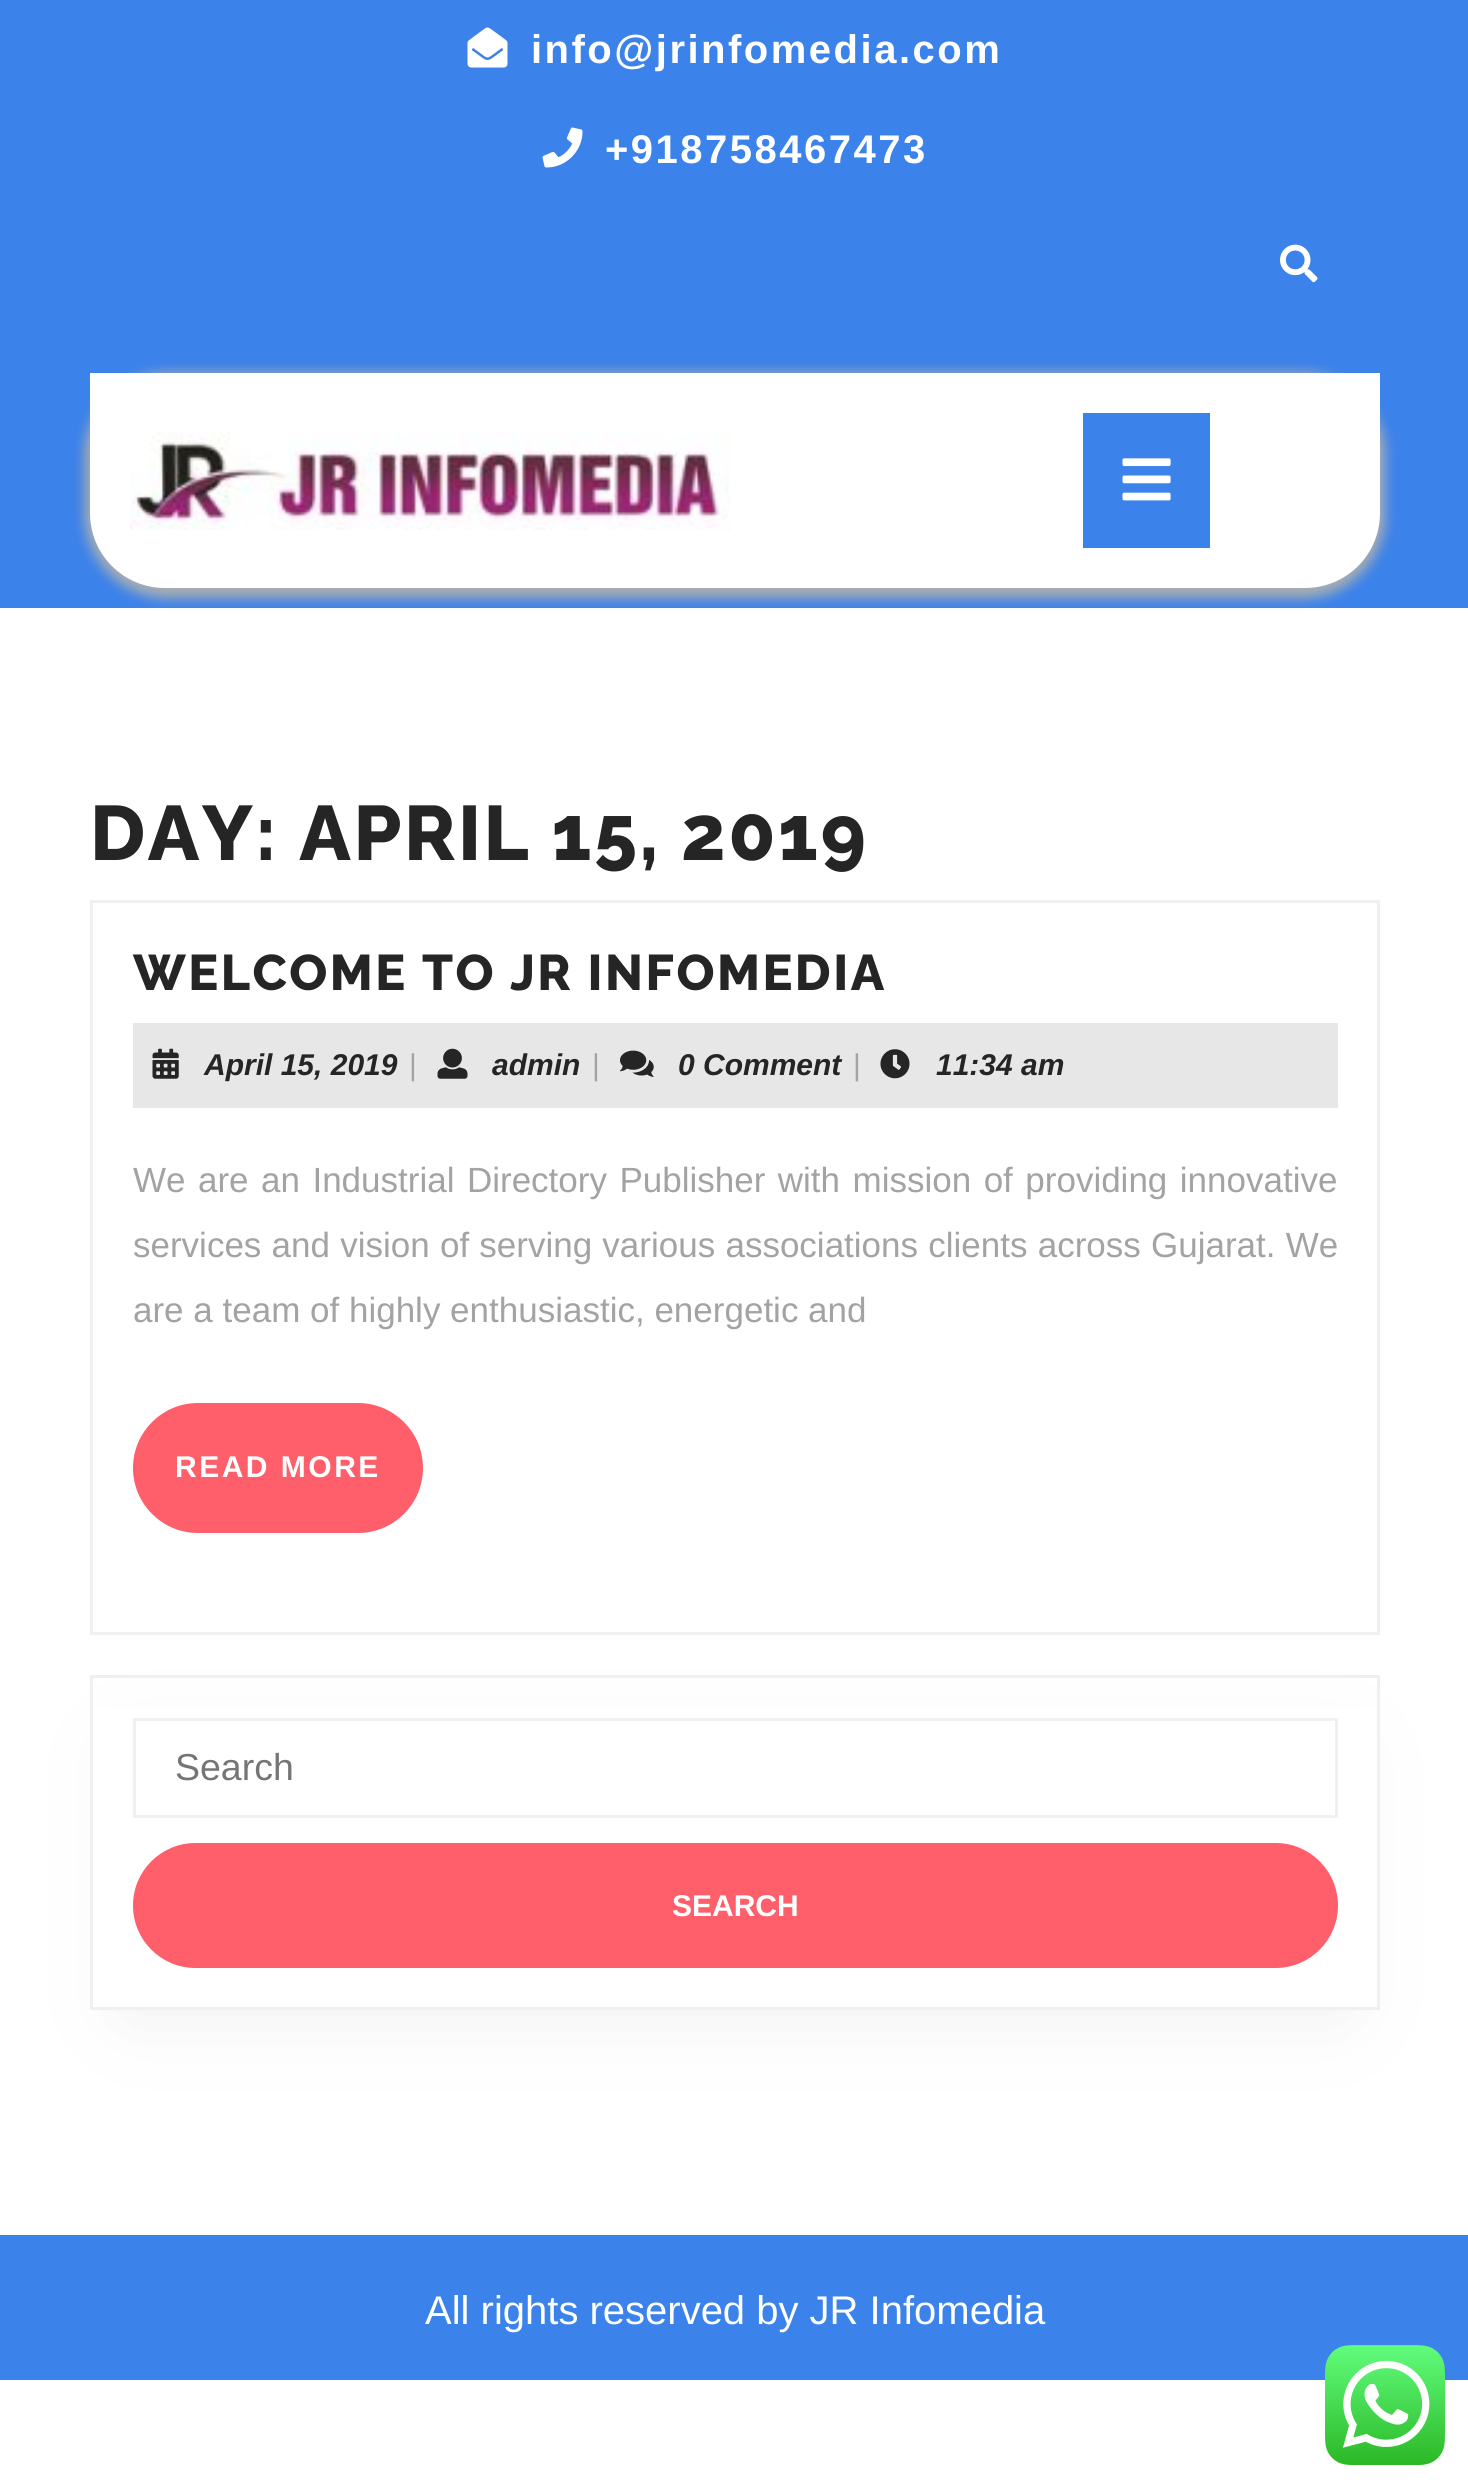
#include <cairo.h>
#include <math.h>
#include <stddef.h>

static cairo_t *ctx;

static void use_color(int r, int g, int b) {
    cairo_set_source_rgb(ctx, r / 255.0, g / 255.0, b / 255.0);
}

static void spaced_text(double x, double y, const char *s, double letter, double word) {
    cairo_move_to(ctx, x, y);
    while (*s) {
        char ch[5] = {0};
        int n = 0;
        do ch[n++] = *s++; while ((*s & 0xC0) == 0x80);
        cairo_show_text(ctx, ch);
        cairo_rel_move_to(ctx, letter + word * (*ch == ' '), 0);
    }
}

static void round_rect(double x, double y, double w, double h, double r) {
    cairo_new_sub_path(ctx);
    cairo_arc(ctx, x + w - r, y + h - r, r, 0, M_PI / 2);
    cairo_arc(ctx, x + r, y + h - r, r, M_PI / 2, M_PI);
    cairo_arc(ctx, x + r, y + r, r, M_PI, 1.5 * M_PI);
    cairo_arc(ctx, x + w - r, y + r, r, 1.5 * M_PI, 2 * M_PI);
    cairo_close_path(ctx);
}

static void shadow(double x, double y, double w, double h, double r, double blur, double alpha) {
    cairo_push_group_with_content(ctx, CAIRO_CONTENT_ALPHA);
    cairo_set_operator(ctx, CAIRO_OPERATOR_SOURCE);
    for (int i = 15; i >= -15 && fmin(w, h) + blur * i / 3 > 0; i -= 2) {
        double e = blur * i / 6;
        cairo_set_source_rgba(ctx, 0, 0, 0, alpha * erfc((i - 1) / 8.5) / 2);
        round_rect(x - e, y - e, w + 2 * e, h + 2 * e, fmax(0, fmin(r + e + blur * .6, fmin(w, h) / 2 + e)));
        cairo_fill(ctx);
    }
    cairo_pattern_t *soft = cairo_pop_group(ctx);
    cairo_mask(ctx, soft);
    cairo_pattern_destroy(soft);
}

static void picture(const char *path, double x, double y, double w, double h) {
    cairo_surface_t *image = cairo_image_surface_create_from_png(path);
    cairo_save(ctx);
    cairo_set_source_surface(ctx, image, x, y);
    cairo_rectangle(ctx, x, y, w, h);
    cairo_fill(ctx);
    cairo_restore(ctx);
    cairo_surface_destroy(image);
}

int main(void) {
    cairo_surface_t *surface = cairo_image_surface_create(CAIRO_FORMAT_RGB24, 1468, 2489);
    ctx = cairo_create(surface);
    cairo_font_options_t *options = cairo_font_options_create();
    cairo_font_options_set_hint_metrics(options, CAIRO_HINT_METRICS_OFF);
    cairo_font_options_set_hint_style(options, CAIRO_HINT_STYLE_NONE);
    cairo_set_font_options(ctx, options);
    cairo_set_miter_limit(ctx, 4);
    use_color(255, 255, 255);
    cairo_paint(ctx);
    use_color(59, 130, 234);
    cairo_rectangle(ctx, 0, 0, 1468, 608);
    cairo_fill(ctx);
    picture("img1.png", 467, 27, 41, 41);
    cairo_select_font_face(ctx, "Liberation Sans", CAIRO_FONT_SLANT_NORMAL, CAIRO_FONT_WEIGHT_BOLD);
    cairo_set_font_size(ctx, 40);
    use_color(255, 255, 255);
    spaced_text(531, 63, "info@jrinfomedia.com", 2.5, 0);
    picture("img2.png", 542, 127, 41, 41);
    spaced_text(605, 163, "+918758467473", 2.5, 0);
    picture("img3.png", 1280, 244, 38, 39);
    use_color(170, 174, 178);
    shadow(85, 373, 1300, 225, 80, 6, 1);
    use_color(255, 255, 255);
    cairo_new_path(ctx);
    cairo_move_to(ctx, 90, 373);
    cairo_line_to(ctx, 1380, 373);
    cairo_line_to(ctx, 1380, 513);
    cairo_curve_to(ctx, 1380, 554.5, 1346.5, 588, 1305, 588);
    cairo_line_to(ctx, 165, 588);
    cairo_curve_to(ctx, 123.5, 588, 90, 554.5, 90, 513);
    cairo_close_path(ctx);
    cairo_fill(ctx);
    picture("img4.png", 130, 432, 600, 98);
    use_color(59, 130, 234);
    cairo_rectangle(ctx, 1083, 413, 127, 135);
    cairo_fill(ctx);
    picture("img5.png", 1122, 458, 49, 43);
    cairo_select_font_face(ctx, "Raleway ExtraBold", CAIRO_FONT_SLANT_NORMAL, CAIRO_FONT_WEIGHT_NORMAL);
    cairo_set_font_size(ctx, 77);
    use_color(37, 37, 37);
    spaced_text(90, 860, "DAY: APRIL 15, 2019", 2.5, 0);
    cairo_rectangle(ctx, 91.5, 901.5, 1287, 732);
    use_color(240, 240, 240);
    cairo_set_line_width(ctx, 3);
    cairo_stroke(ctx);
    cairo_set_font_size(ctx, 50);
    use_color(37, 37, 37);
    spaced_text(133, 990, "WELCOME TO JR INFOMEDIA", 2.5, 0);
    use_color(231, 231, 231);
    cairo_rectangle(ctx, 133, 1023, 1205, 85);
    cairo_fill(ctx);
    picture("img6.png", 152, 1048, 27, 31);
    cairo_select_font_face(ctx, "Liberation Sans", CAIRO_FONT_SLANT_ITALIC, CAIRO_FONT_WEIGHT_BOLD);
    cairo_set_font_size(ctx, 30);
    use_color(37, 37, 37);
    cairo_move_to(ctx, 204, 1075);
    cairo_show_text(ctx, "April 15, 2019");
    cairo_select_font_face(ctx, "Liberation Sans", CAIRO_FONT_SLANT_NORMAL, CAIRO_FONT_WEIGHT_NORMAL);
    use_color(163, 163, 163);
    cairo_move_to(ctx, 409, 1075);
    cairo_show_text(ctx, "|");
    picture("img7.png", 437, 1048, 31, 31);
    cairo_select_font_face(ctx, "Liberation Sans", CAIRO_FONT_SLANT_ITALIC, CAIRO_FONT_WEIGHT_BOLD);
    use_color(37, 37, 37);
    cairo_move_to(ctx, 492, 1075);
    cairo_show_text(ctx, "admin");
    cairo_select_font_face(ctx, "Liberation Sans", CAIRO_FONT_SLANT_NORMAL, CAIRO_FONT_WEIGHT_NORMAL);
    use_color(163, 163, 163);
    cairo_move_to(ctx, 592, 1075);
    cairo_show_text(ctx, "|");
    picture("img8.png", 620, 1050, 34, 27);
    cairo_select_font_face(ctx, "Liberation Sans", CAIRO_FONT_SLANT_ITALIC, CAIRO_FONT_WEIGHT_BOLD);
    use_color(37, 37, 37);
    cairo_move_to(ctx, 678, 1075);
    cairo_show_text(ctx, "0 Comment");
    cairo_select_font_face(ctx, "Liberation Sans", CAIRO_FONT_SLANT_NORMAL, CAIRO_FONT_WEIGHT_NORMAL);
    use_color(163, 163, 163);
    cairo_move_to(ctx, 853, 1075);
    cairo_show_text(ctx, "|");
    picture("img9.png", 880, 1049, 30, 30);
    cairo_select_font_face(ctx, "Liberation Sans", CAIRO_FONT_SLANT_ITALIC, CAIRO_FONT_WEIGHT_BOLD);
    use_color(37, 37, 37);
    cairo_move_to(ctx, 936, 1075);
    cairo_show_text(ctx, "11:34 am");
    cairo_select_font_face(ctx, "Liberation Sans", CAIRO_FONT_SLANT_NORMAL, CAIRO_FONT_WEIGHT_NORMAL);
    cairo_set_font_size(ctx, 35);
    use_color(163, 163, 163);
    spaced_text(133, 1192, "We are an Industrial Directory Publisher with mission of providing innovative", 0, 2.75);
    spaced_text(133, 1257, "services and vision of serving various associations clients across Gujarat. We", 0, 0.5);
    cairo_move_to(ctx, 133, 1322);
    cairo_show_text(ctx, "are a team of highly enthusiastic, energetic and");
    use_color(255, 94, 107);
    round_rect(134.5, 1404.5, 287, 127, 63.5);
    cairo_fill_preserve(ctx);
    cairo_stroke(ctx);
    cairo_select_font_face(ctx, "Liberation Sans", CAIRO_FONT_SLANT_NORMAL, CAIRO_FONT_WEIGHT_BOLD);
    cairo_set_font_size(ctx, 30);
    use_color(255, 255, 255);
    spaced_text(175, 1477, "READ MORE", 2.5, 0);
    use_color(240, 240, 240);
    shadow(128, 1750, 1215, 260, 0, 44, 1);
    use_color(255, 255, 255);
    cairo_rectangle(ctx, 93, 1708, 1284, 299);
    cairo_fill(ctx);
    cairo_rectangle(ctx, 91.5, 1676.5, 1287, 332);
    use_color(240, 240, 240);
    cairo_stroke(ctx);
    cairo_rectangle(ctx, 134.5, 1719.5, 1202, 97);
    cairo_stroke(ctx);
    cairo_select_font_face(ctx, "Liberation Sans", CAIRO_FONT_SLANT_NORMAL, CAIRO_FONT_WEIGHT_NORMAL);
    cairo_set_font_size(ctx, 37.5);
    use_color(117, 117, 117);
    cairo_move_to(ctx, 175, 1780);
    cairo_show_text(ctx, "Search");
    use_color(255, 94, 107);
    round_rect(133, 1843, 1205, 125, 62.5);
    cairo_fill(ctx);
    cairo_select_font_face(ctx, "Liberation Sans", CAIRO_FONT_SLANT_NORMAL, CAIRO_FONT_WEIGHT_BOLD);
    cairo_set_font_size(ctx, 30);
    use_color(255, 255, 255);
    cairo_move_to(ctx, 672, 1916);
    cairo_show_text(ctx, "SEARCH");
    use_color(59, 130, 234);
    cairo_rectangle(ctx, 0, 2235, 1468, 145);
    cairo_fill(ctx);
    cairo_select_font_face(ctx, "Liberation Sans", CAIRO_FONT_SLANT_NORMAL, CAIRO_FONT_WEIGHT_NORMAL);
    cairo_set_font_size(ctx, 40);
    use_color(255, 255, 255);
    cairo_move_to(ctx, 425, 2324);
    cairo_show_text(ctx, "All rights reserved by JR Infomedia");
    picture("img10.png", 1325, 2345, 120, 120);
    cairo_surface_write_to_png(surface, "result.png");
    cairo_font_options_destroy(options);
    cairo_destroy(ctx);
    cairo_surface_destroy(surface);
    return 0;
}
